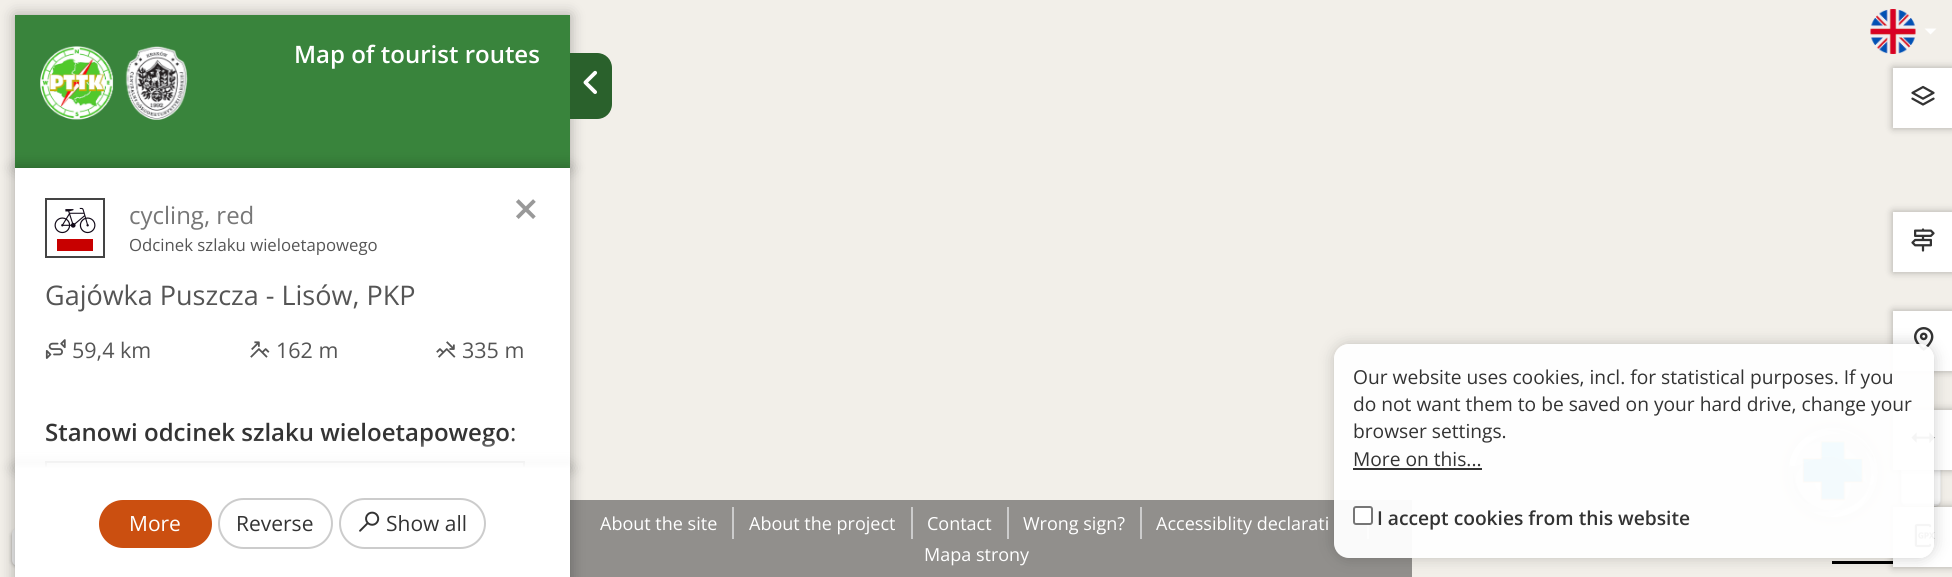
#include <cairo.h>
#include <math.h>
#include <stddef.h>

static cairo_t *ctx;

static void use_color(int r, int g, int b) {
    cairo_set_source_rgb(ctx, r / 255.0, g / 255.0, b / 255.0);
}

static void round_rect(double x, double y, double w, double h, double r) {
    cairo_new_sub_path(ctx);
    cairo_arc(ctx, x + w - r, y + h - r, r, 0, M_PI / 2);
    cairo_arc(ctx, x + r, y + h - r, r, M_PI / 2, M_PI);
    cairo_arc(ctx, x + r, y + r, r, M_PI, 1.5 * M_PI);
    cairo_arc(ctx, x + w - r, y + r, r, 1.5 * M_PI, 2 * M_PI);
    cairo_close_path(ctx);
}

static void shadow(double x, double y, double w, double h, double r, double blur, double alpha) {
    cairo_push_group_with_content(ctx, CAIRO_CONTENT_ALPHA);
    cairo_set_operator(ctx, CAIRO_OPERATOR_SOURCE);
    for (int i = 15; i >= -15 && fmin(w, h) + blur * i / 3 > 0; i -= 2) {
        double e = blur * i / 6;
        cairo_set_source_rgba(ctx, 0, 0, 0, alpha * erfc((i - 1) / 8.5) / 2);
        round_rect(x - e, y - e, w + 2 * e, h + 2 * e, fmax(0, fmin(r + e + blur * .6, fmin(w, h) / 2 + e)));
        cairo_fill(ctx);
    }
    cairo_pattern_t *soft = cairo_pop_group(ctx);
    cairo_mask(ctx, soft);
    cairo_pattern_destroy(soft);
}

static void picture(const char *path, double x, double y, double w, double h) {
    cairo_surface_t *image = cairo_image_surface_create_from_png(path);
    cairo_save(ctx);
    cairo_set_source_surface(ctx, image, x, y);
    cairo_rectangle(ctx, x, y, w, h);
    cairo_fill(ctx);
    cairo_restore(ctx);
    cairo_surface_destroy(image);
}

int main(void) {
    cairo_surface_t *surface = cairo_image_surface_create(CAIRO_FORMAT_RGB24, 1952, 577);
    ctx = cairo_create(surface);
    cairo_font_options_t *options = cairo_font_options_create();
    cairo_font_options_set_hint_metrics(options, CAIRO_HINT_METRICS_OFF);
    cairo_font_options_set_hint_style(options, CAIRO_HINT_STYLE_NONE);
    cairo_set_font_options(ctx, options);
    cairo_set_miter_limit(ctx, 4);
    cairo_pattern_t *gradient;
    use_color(242, 239, 233);
    cairo_paint(ctx);
    picture("img1.png", 1870, 9, 46, 45);
    use_color(255, 255, 255);
    cairo_new_path(ctx);
    cairo_move_to(ctx, 1924.5, 28.5);
    cairo_line_to(ctx, 1936.5, 28.5);
    cairo_line_to(ctx, 1930.5, 34.5);
    cairo_close_path(ctx);
    cairo_fill(ctx);
    use_color(0, 0, 0);
    shadow(15, 15, 555, 153, 0, 7.5, 0.3);
    use_color(57, 132, 60);
    cairo_rectangle(ctx, 15, 15, 555, 153);
    cairo_fill(ctx);
    picture("img2.png", 40, 46, 148, 74);
    cairo_select_font_face(ctx, "Open Sans SemiBold", CAIRO_FONT_SLANT_NORMAL, CAIRO_FONT_WEIGHT_NORMAL);
    cairo_set_font_size(ctx, 24);
    use_color(255, 255, 255);
    cairo_move_to(ctx, 294, 63);
    cairo_show_text(ctx, "Map of tourist routes");
    use_color(42, 97, 44);
    cairo_new_path(ctx);
    cairo_move_to(ctx, 570, 53);
    cairo_line_to(ctx, 597, 53);
    cairo_curve_to(ctx, 605.5, 53, 612, 59.5, 612, 68);
    cairo_line_to(ctx, 612, 104);
    cairo_curve_to(ctx, 612, 112.5, 605.5, 119, 597, 119);
    cairo_line_to(ctx, 570, 119);
    cairo_close_path(ctx);
    cairo_fill(ctx);
    picture("img3.png", 583, 70, 15, 24);
    use_color(0, 0, 0);
    shadow(15, 168, 555, 300, 0, 7.5, 0.3);
    use_color(255, 255, 255);
    cairo_rectangle(ctx, 15, 168, 555, 300);
    cairo_fill(ctx);
    picture("img4.png", 54, 207, 42, 27);
    cairo_rectangle(ctx, 46, 199, 58, 58);
    use_color(68, 68, 68);
    cairo_stroke(ctx);
    use_color(200, 0, 0);
    cairo_rectangle(ctx, 57, 239, 36, 12);
    cairo_fill(ctx);
    cairo_select_font_face(ctx, "Open Sans", CAIRO_FONT_SLANT_NORMAL, CAIRO_FONT_WEIGHT_NORMAL);
    use_color(119, 119, 119);
    cairo_move_to(ctx, 129, 224);
    cairo_show_text(ctx, "cycling, red");
    cairo_set_font_size(ctx, 16.75);
    use_color(85, 85, 85);
    cairo_move_to(ctx, 129, 251);
    cairo_show_text(ctx, "Odcinek szlaku wieloetapowego");
    cairo_set_font_size(ctx, 27);
    cairo_move_to(ctx, 45, 305);
    cairo_show_text(ctx, "Gajówka Puszcza - Lisów, PKP");
    picture("img5.png", 45, 339, 21, 20);
    cairo_set_font_size(ctx, 21.5);
    cairo_move_to(ctx, 72, 358);
    cairo_show_text(ctx, "59,4 km");
    picture("img6.png", 250, 341, 20, 17);
    cairo_move_to(ctx, 276, 358);
    cairo_show_text(ctx, "162 m");
    picture("img7.png", 436, 341, 20, 17);
    cairo_move_to(ctx, 462, 358);
    cairo_show_text(ctx, "335 m");
    cairo_select_font_face(ctx, "Open Sans SemiBold", CAIRO_FONT_SLANT_NORMAL, CAIRO_FONT_WEIGHT_NORMAL);
    cairo_set_font_size(ctx, 24);
    use_color(51, 51, 51);
    cairo_move_to(ctx, 45, 441);
    cairo_show_text(ctx, "Stanowi odcinek szlaku wieloetapowego");
    cairo_select_font_face(ctx, "Open Sans", CAIRO_FONT_SLANT_NORMAL, CAIRO_FONT_WEIGHT_NORMAL);
    cairo_move_to(ctx, 510, 441);
    cairo_show_text(ctx, ":");
    cairo_rectangle(ctx, 46, 462, 478, 46);
    use_color(204, 204, 204);
    cairo_stroke(ctx);
    cairo_select_font_face(ctx, "Open Sans SemiBold", CAIRO_FONT_SLANT_NORMAL, CAIRO_FONT_WEIGHT_NORMAL);
    cairo_set_font_size(ctx, 45);
    use_color(153, 153, 153);
    cairo_move_to(ctx, 513, 225);
    cairo_show_text(ctx, "×");
    use_color(0, 0, 0);
    shadow(11, 530, 285, 37, 6, 1.5, 0.2);
    use_color(238, 238, 238);
    round_rect(12, 528, 285, 38, 6);
    cairo_fill(ctx);
    use_color(145, 143, 140);
    cairo_rectangle(ctx, 570, 500, 842, 77);
    cairo_fill(ctx);
    use_color(0, 0, 0);
    shadow(15, 468, 555, 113, 0, 7.5, 0.3);
    gradient = cairo_pattern_create_linear(293, 438, 293, 468);
    cairo_pattern_add_color_stop_rgba(gradient, 0, 1, 1, 1, 0);
    cairo_pattern_add_color_stop_rgba(gradient, 1, 1, 1, 1, 1);
    cairo_set_source(ctx, gradient);
    cairo_pattern_destroy(gradient);
    cairo_rectangle(ctx, 15, 439, 555, 29);
    cairo_fill(ctx);
    use_color(255, 255, 255);
    cairo_rectangle(ctx, 15, 468, 555, 109);
    cairo_fill(ctx);
    use_color(203, 79, 16);
    round_rect(99, 500, 113, 48, 24);
    cairo_fill(ctx);
    cairo_select_font_face(ctx, "Open Sans", CAIRO_FONT_SLANT_NORMAL, CAIRO_FONT_WEIGHT_NORMAL);
    cairo_set_font_size(ctx, 21);
    use_color(255, 255, 255);
    cairo_move_to(ctx, 129, 531);
    cairo_show_text(ctx, "More");
    round_rect(219, 499, 113, 49, 24.5);
    use_color(204, 204, 204);
    cairo_stroke(ctx);
    use_color(51, 51, 51);
    cairo_move_to(ctx, 236, 531);
    cairo_show_text(ctx, "Reverse");
    round_rect(340, 499, 145, 49, 24.5);
    use_color(204, 204, 204);
    cairo_stroke(ctx);
    picture("img8.png", 359, 511, 21, 21);
    use_color(51, 51, 51);
    cairo_move_to(ctx, 386, 531);
    cairo_show_text(ctx, "Show all");
    use_color(0, 0, 0);
    shadow(1893, 311, 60, 60, 0, 4, 0.3);
    use_color(255, 255, 255);
    cairo_rectangle(ctx, 1893, 311, 59, 60);
    cairo_fill(ctx);
    picture("img11.png", 1914, 327, 20, 24);
    use_color(0, 0, 0);
    shadow(1899, 428, 41, 79, 6, 1.5, 0.2);
    use_color(238, 238, 238);
    round_rect(1901, 426, 40, 80, 6);
    cairo_fill(ctx);
    use_color(255, 255, 255);
    cairo_new_path(ctx);
    cairo_move_to(ctx, 1902, 467);
    cairo_line_to(ctx, 1940, 467);
    cairo_line_to(ctx, 1940, 501);
    cairo_curve_to(ctx, 1940, 502.5, 1938.5, 504, 1937, 504);
    cairo_line_to(ctx, 1905, 504);
    cairo_curve_to(ctx, 1903.5, 504, 1902, 502.5, 1902, 501);
    cairo_close_path(ctx);
    cairo_fill(ctx);
    use_color(0, 0, 0);
    shadow(1893, 410, 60, 60, 0, 4, 0.3);
    shadow(1788, 428, 90, 90, 45, 7.5, 0.3);
    use_color(255, 255, 255);
    cairo_rectangle(ctx, 1893, 410, 59, 60);
    cairo_fill(ctx);
    picture("img12.png", 1911, 432, 24, 12);
    use_color(0, 0, 0);
    cairo_rectangle(ctx, 1832, 561, 61, 3);
    cairo_fill(ctx);
    use_color(0, 0, 0);
    shadow(1893, 507, 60, 60, 0, 4, 0.3);
    use_color(255, 255, 255);
    cairo_rectangle(ctx, 1893, 507, 59, 60);
    cairo_fill(ctx);
    picture("img13.png", 1914, 523, 21, 25);
    picture("img14.png", 1788, 427, 90, 91);
    use_color(204, 204, 204);
    cairo_rectangle(ctx, 1367, 525, 2, 14);
    cairo_fill(ctx);
    cairo_save(ctx);
    cairo_set_fill_rule(ctx, CAIRO_FILL_RULE_EVEN_ODD);
    cairo_new_path(ctx);
    cairo_move_to(ctx, 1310, 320);
    cairo_line_to(ctx, 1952, 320);
    cairo_line_to(ctx, 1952, 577);
    cairo_line_to(ctx, 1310, 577);
    cairo_close_path(ctx);
    cairo_move_to(ctx, 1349, 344);
    cairo_line_to(ctx, 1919, 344);
    cairo_curve_to(ctx, 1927.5, 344, 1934, 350.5, 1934, 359);
    cairo_line_to(ctx, 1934, 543);
    cairo_curve_to(ctx, 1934, 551.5, 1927.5, 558, 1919, 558);
    cairo_line_to(ctx, 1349, 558);
    cairo_curve_to(ctx, 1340.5, 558, 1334, 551.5, 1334, 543);
    cairo_line_to(ctx, 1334, 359);
    cairo_curve_to(ctx, 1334, 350.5, 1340.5, 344, 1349, 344);
    cairo_close_path(ctx);
    cairo_clip(ctx);
    use_color(0, 0, 0);
    shadow(1334, 344, 600, 214, 15, 7.5, 0.2);
    cairo_restore(ctx);
    cairo_set_source_rgba(ctx, 1, 1, 1, 0.95);
    round_rect(1334, 344, 600, 214, 15);
    cairo_fill(ctx);
    cairo_set_font_size(ctx, 19.2);
    use_color(51, 51, 51);
    cairo_move_to(ctx, 1353, 384);
    cairo_show_text(ctx, "Our website uses cookies, incl. for statistical purposes. If you");
    cairo_move_to(ctx, 1353, 411);
    cairo_show_text(ctx, "do not want them to be saved on your hard drive, change your");
    cairo_move_to(ctx, 1353, 438);
    cairo_show_text(ctx, "browser settings.");
    cairo_move_to(ctx, 1353, 466);
    cairo_show_text(ctx, "More on this...");
    cairo_rectangle(ctx, 1353, 468, 129, 2);
    cairo_fill(ctx);
    use_color(255, 255, 255);
    round_rect(1354, 507, 18, 17, 2);
    cairo_fill_preserve(ctx);
    use_color(118, 118, 118);
    cairo_stroke(ctx);
    cairo_select_font_face(ctx, "Open Sans SemiBold", CAIRO_FONT_SLANT_NORMAL, CAIRO_FONT_WEIGHT_NORMAL);
    use_color(51, 51, 51);
    cairo_move_to(ctx, 1377, 525);
    cairo_show_text(ctx, "I accept cookies from this website");
    use_color(0, 0, 0);
    shadow(1893, 68, 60, 60, 0, 4, 0.3);
    use_color(255, 255, 255);
    cairo_rectangle(ctx, 1893, 68, 59, 60);
    cairo_fill(ctx);
    picture("img9.png", 1911, 85, 24, 21);
    use_color(0, 0, 0);
    shadow(1893, 212, 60, 60, 0, 4, 0.3);
    use_color(255, 255, 255);
    cairo_rectangle(ctx, 1893, 212, 59, 60);
    cairo_fill(ctx);
    picture("img10.png", 1911, 228, 24, 24);
    use_color(204, 204, 204);
    cairo_rectangle(ctx, 732, 507, 2, 32);
    cairo_fill(ctx);
    cairo_select_font_face(ctx, "Open Sans", CAIRO_FONT_SLANT_NORMAL, CAIRO_FONT_WEIGHT_NORMAL);
    cairo_set_font_size(ctx, 18);
    use_color(255, 255, 255);
    cairo_move_to(ctx, 600, 530);
    cairo_show_text(ctx, "About the site");
    use_color(204, 204, 204);
    cairo_rectangle(ctx, 911, 507, 2, 32);
    cairo_fill(ctx);
    use_color(255, 255, 255);
    cairo_move_to(ctx, 749, 530);
    cairo_show_text(ctx, "About the project");
    use_color(204, 204, 204);
    cairo_rectangle(ctx, 1007, 507, 2, 32);
    cairo_fill(ctx);
    use_color(255, 255, 255);
    cairo_move_to(ctx, 927, 530);
    cairo_show_text(ctx, "Contact");
    use_color(204, 204, 204);
    cairo_rectangle(ctx, 1140, 507, 2, 32);
    cairo_fill(ctx);
    use_color(255, 255, 255);
    cairo_move_to(ctx, 1023, 530);
    cairo_show_text(ctx, "Wrong sign?");
    cairo_move_to(ctx, 1156, 530);
    cairo_show_text(ctx, "Accessiblity declarati");
    cairo_move_to(ctx, 924, 561);
    cairo_show_text(ctx, "Mapa strony");
    cairo_surface_write_to_png(surface, "result.png");
    cairo_font_options_destroy(options);
    cairo_destroy(ctx);
    cairo_surface_destroy(surface);
    return 0;
}
